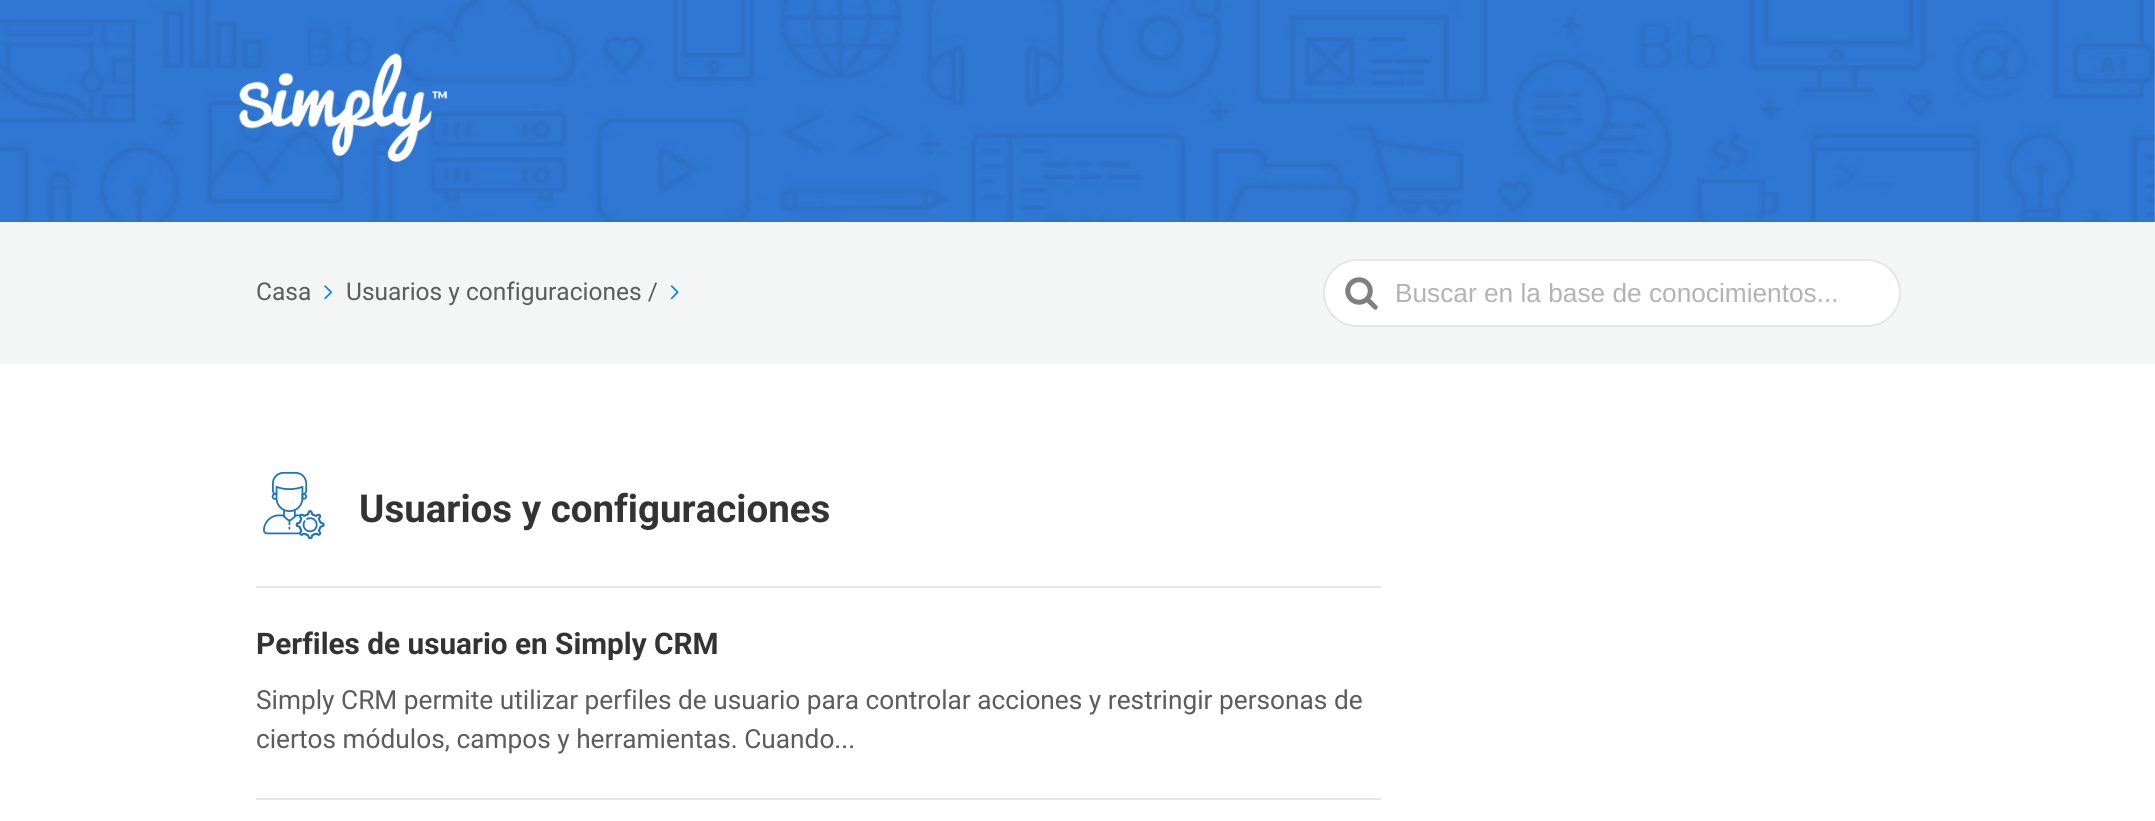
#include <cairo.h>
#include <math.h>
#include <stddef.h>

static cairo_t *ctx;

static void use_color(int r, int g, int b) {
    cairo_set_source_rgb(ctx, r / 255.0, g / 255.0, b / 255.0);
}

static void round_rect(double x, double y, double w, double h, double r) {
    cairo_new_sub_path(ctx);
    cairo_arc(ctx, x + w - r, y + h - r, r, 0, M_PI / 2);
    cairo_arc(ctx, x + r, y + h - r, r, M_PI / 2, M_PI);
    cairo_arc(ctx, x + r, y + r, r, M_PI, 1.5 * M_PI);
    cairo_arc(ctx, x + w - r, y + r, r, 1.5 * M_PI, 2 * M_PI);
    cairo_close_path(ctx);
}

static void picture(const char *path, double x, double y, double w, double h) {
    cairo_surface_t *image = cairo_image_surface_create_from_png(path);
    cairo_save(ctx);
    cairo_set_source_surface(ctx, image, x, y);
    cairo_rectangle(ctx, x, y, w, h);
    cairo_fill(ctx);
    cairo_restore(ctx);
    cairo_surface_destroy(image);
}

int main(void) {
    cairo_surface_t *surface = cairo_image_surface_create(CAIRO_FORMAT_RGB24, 2155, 821);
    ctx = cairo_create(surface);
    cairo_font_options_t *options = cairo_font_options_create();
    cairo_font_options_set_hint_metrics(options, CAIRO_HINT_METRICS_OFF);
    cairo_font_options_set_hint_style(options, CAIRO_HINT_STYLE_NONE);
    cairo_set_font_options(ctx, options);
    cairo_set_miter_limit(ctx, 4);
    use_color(255, 255, 255);
    cairo_paint(ctx);
    picture("img1.png", 0, 0, 2155, 222);
    picture("img2.png", 238, 53, 210, 109);
    use_color(244, 245, 245);
    cairo_rectangle(ctx, 0, 222, 2155, 142);
    cairo_fill(ctx);
    cairo_select_font_face(ctx, "Roboto", CAIRO_FONT_SLANT_NORMAL, CAIRO_FONT_WEIGHT_NORMAL);
    cairo_set_font_size(ctx, 24.5);
    use_color(92, 92, 92);
    cairo_move_to(ctx, 256, 300);
    cairo_show_text(ctx, "Casa");
    picture("img3.png", 324, 285, 8, 14);
    cairo_move_to(ctx, 346, 300);
    cairo_show_text(ctx, "Usuarios y configuraciones /");
    picture("img4.png", 670, 285, 9, 14);
    use_color(255, 255, 255);
    round_rect(1323, 259, 578, 68, 34);
    cairo_fill(ctx);
    round_rect(1324, 260, 576, 66, 33);
    cairo_set_source_rgba(ctx, 0.8, 0.8, 0.8, 0.5);
    cairo_stroke(ctx);
    picture("img5.png", 1345, 277, 33, 33);
    cairo_select_font_face(ctx, "Liberation Sans", CAIRO_FONT_SLANT_NORMAL, CAIRO_FONT_WEIGHT_NORMAL);
    cairo_set_font_size(ctx, 26.25);
    use_color(179, 179, 179);
    cairo_move_to(ctx, 1395, 302);
    cairo_show_text(ctx, "Buscar en la base de conocimientos...");
    use_color(230, 230, 230);
    cairo_rectangle(ctx, 256, 586, 1125, 2);
    cairo_fill(ctx);
    picture("img6.png", 263, 471, 62, 69);
    cairo_select_font_face(ctx, "Roboto", CAIRO_FONT_SLANT_NORMAL, CAIRO_FONT_WEIGHT_BOLD);
    cairo_set_font_size(ctx, 38.5);
    use_color(51, 51, 51);
    cairo_move_to(ctx, 359, 522);
    cairo_show_text(ctx, "Usuarios y configuraciones");
    use_color(230, 230, 230);
    cairo_rectangle(ctx, 256, 798, 1125, 2);
    cairo_fill(ctx);
    cairo_set_font_size(ctx, 29.75);
    use_color(51, 51, 51);
    cairo_move_to(ctx, 256, 654);
    cairo_show_text(ctx, "Perfiles de usuario en Simply CRM");
    cairo_select_font_face(ctx, "Roboto", CAIRO_FONT_SLANT_NORMAL, CAIRO_FONT_WEIGHT_NORMAL);
    cairo_set_font_size(ctx, 26.25);
    use_color(92, 92, 92);
    cairo_move_to(ctx, 256, 709);
    cairo_show_text(ctx, "Simply CRM permite utilizar perfiles de usuario para controlar acciones y restringir personas de");
    cairo_move_to(ctx, 256, 748);
    cairo_show_text(ctx, "ciertos módulos, campos y herramientas. Cuando...");
    cairo_surface_write_to_png(surface, "result.png");
    cairo_font_options_destroy(options);
    cairo_destroy(ctx);
    cairo_surface_destroy(surface);
    return 0;
}
